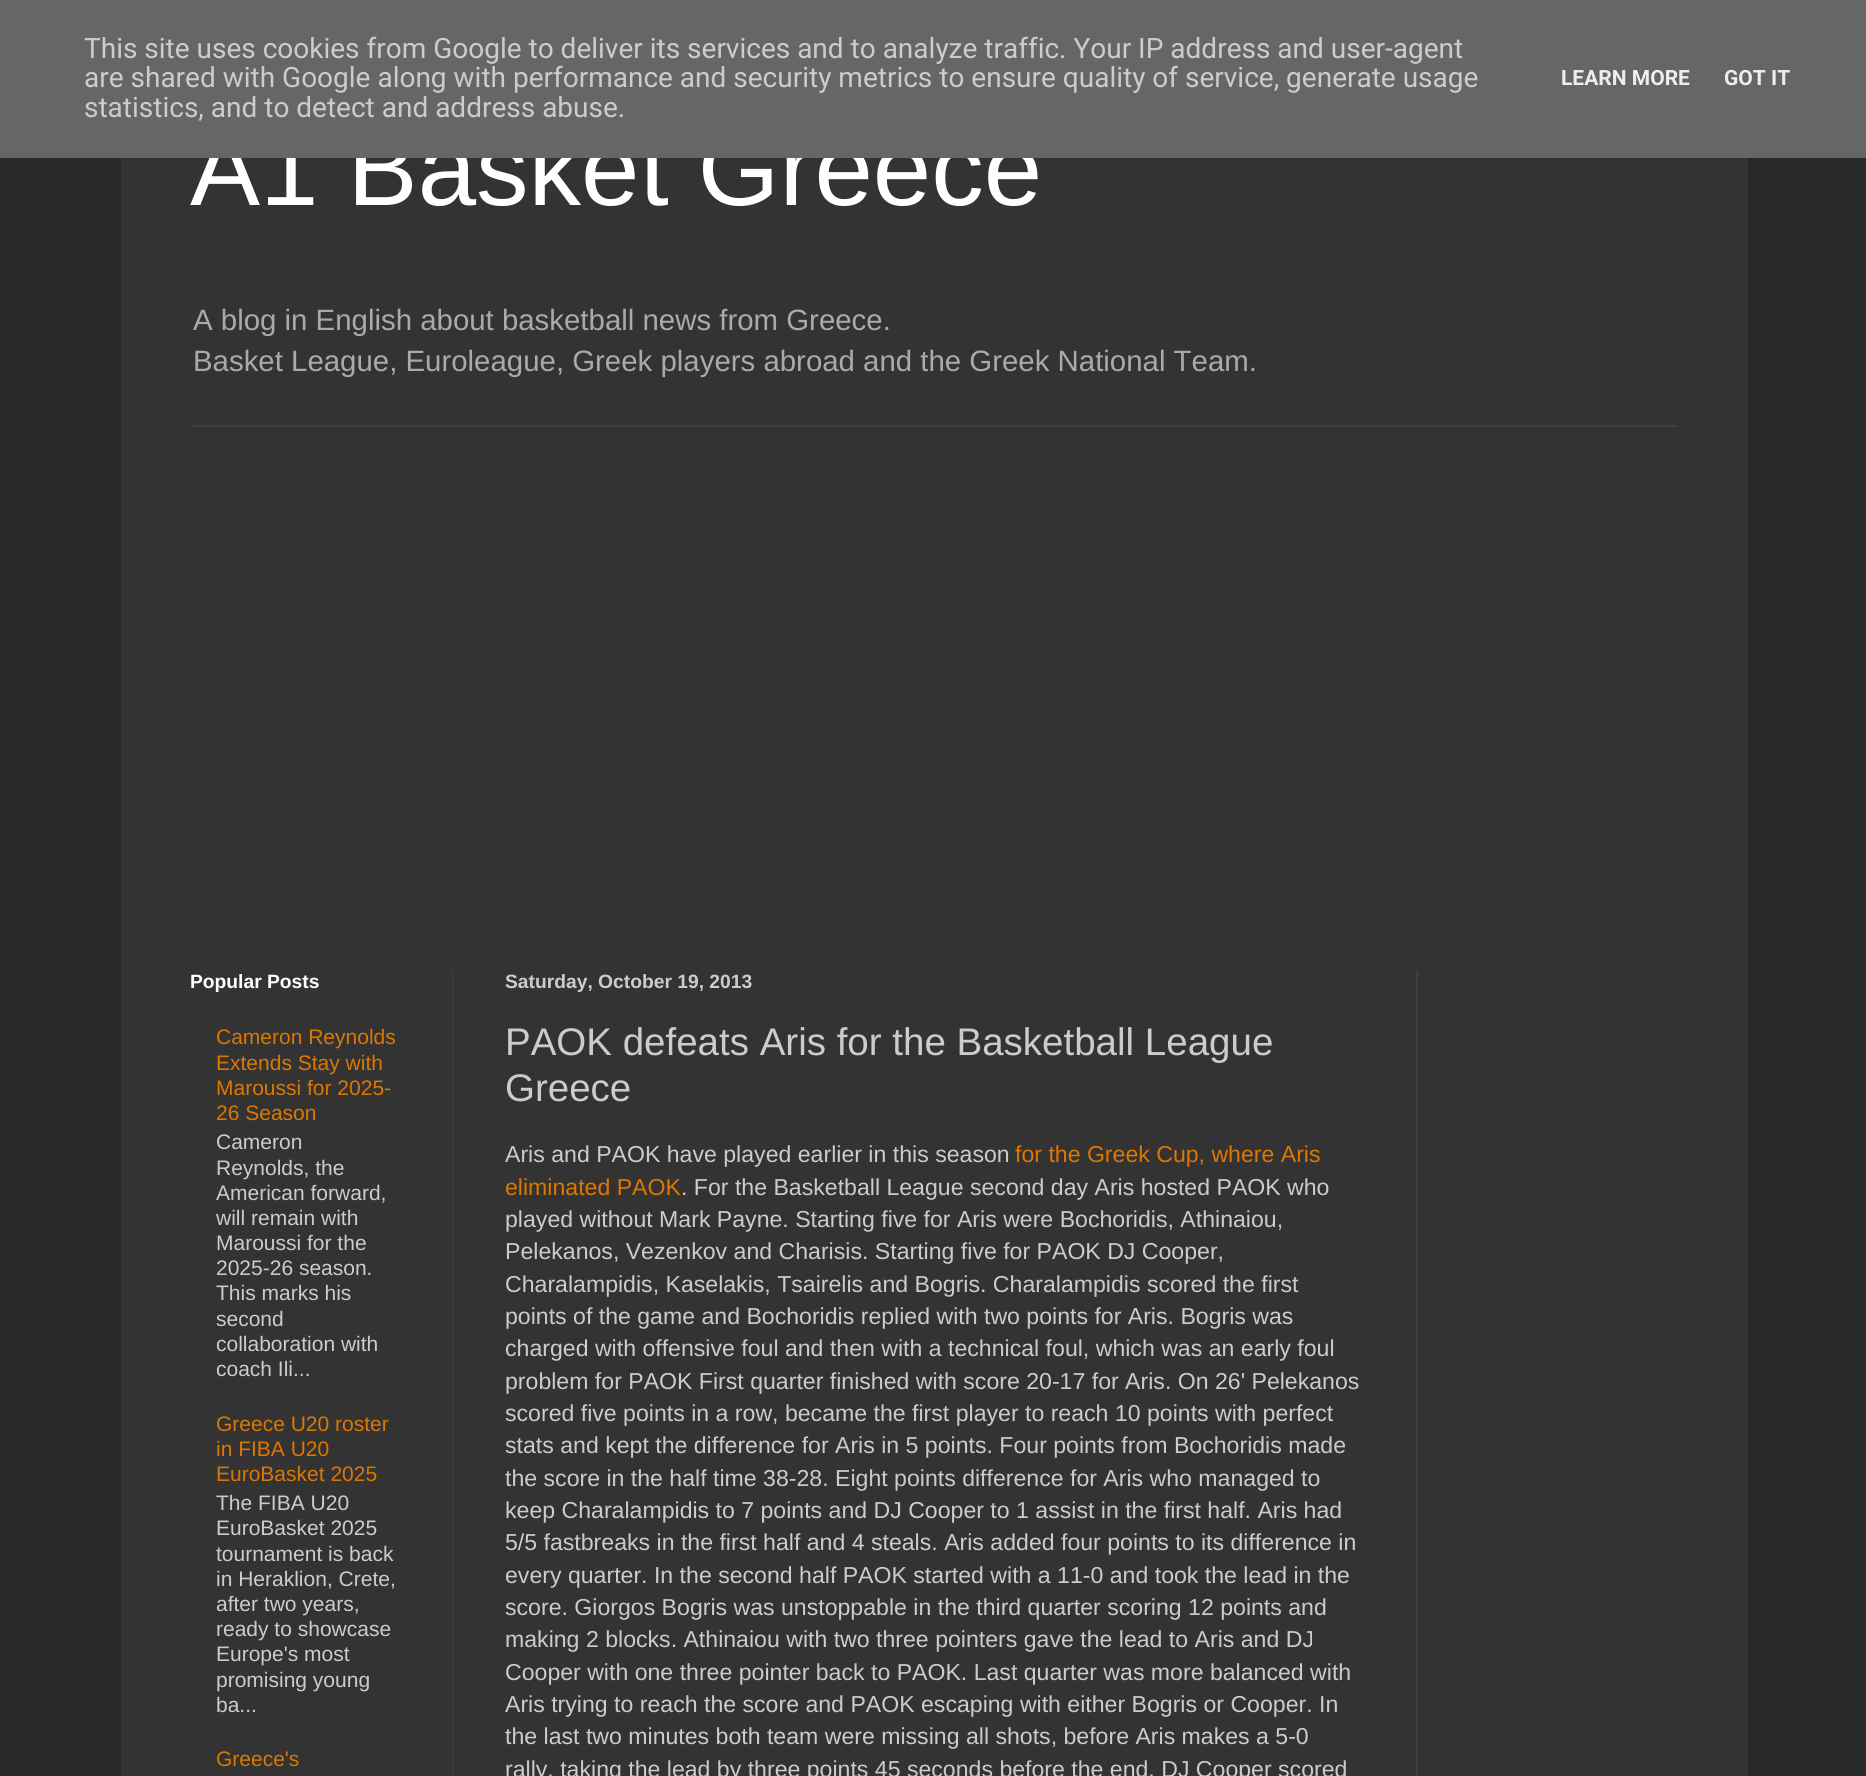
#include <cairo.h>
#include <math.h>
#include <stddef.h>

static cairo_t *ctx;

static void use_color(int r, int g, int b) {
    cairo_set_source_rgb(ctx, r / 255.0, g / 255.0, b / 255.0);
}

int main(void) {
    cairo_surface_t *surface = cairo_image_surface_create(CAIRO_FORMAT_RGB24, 1866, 1776);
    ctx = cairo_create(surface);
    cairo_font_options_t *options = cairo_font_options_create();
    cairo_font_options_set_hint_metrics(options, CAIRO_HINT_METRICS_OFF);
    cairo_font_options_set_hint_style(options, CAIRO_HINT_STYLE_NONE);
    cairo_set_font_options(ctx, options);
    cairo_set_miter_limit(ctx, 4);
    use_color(41, 41, 41);
    cairo_paint(ctx);
    use_color(51, 51, 51);
    cairo_rectangle(ctx, 121, 158, 1627, 1618);
    cairo_fill(ctx);
    cairo_select_font_face(ctx, "Liberation Sans", CAIRO_FONT_SLANT_NORMAL, CAIRO_FONT_WEIGHT_NORMAL);
    cairo_set_font_size(ctx, 105);
    use_color(255, 255, 255);
    cairo_move_to(ctx, 190, 205);
    cairo_show_text(ctx, "A1 Basket Greece");
    use_color(102, 102, 102);
    cairo_rectangle(ctx, 0, 0, 1866, 158);
    cairo_fill(ctx);
    cairo_select_font_face(ctx, "Roboto", CAIRO_FONT_SLANT_NORMAL, CAIRO_FONT_WEIGHT_NORMAL);
    cairo_set_font_size(ctx, 28);
    use_color(204, 204, 204);
    cairo_move_to(ctx, 84, 58);
    cairo_show_text(ctx, "This site uses cookies from Google to deliver its services and to analyze traffic. Your IP address and user-agent");
    cairo_move_to(ctx, 84, 87);
    cairo_show_text(ctx, "are shared with Google along with performance and security metrics to ensure quality of service, generate usage");
    cairo_move_to(ctx, 84, 117);
    cairo_show_text(ctx, "statistics, and to detect and address abuse.");
    cairo_select_font_face(ctx, "Roboto", CAIRO_FONT_SLANT_NORMAL, CAIRO_FONT_WEIGHT_BOLD);
    cairo_set_font_size(ctx, 21);
    use_color(238, 238, 238);
    cairo_move_to(ctx, 1561, 85);
    cairo_show_text(ctx, "LEARN MORE");
    cairo_move_to(ctx, 1724, 85);
    cairo_show_text(ctx, "GOT IT");
    cairo_select_font_face(ctx, "Liberation Sans", CAIRO_FONT_SLANT_NORMAL, CAIRO_FONT_WEIGHT_NORMAL);
    cairo_set_font_size(ctx, 29.4);
    use_color(170, 170, 170);
    cairo_move_to(ctx, 193, 330);
    cairo_show_text(ctx, "A blog in English about basketball news from Greece.");
    cairo_move_to(ctx, 193, 371);
    cairo_show_text(ctx, "Basket League, Euroleague, Greek players abroad and the Greek National Team.");
    use_color(64, 64, 64);
    cairo_rectangle(ctx, 191, 425, 1487, 2);
    cairo_fill(ctx);
    cairo_rectangle(ctx, 452, 970, 1, 806);
    cairo_fill(ctx);
    cairo_rectangle(ctx, 1416, 970, 2, 806);
    cairo_fill(ctx);
    cairo_select_font_face(ctx, "Liberation Sans", CAIRO_FONT_SLANT_NORMAL, CAIRO_FONT_WEIGHT_BOLD);
    cairo_set_font_size(ctx, 19.25);
    use_color(255, 255, 255);
    cairo_move_to(ctx, 190, 988);
    cairo_show_text(ctx, "Popular Posts");
    cairo_select_font_face(ctx, "Liberation Sans", CAIRO_FONT_SLANT_NORMAL, CAIRO_FONT_WEIGHT_NORMAL);
    cairo_set_font_size(ctx, 21);
    use_color(221, 119, 0);
    cairo_move_to(ctx, 216, 1044);
    cairo_show_text(ctx, "Cameron Reynolds");
    cairo_move_to(ctx, 216, 1070);
    cairo_show_text(ctx, "Extends Stay with");
    cairo_move_to(ctx, 216, 1095);
    cairo_show_text(ctx, "Maroussi for 2025-");
    cairo_move_to(ctx, 216, 1120);
    cairo_show_text(ctx, "26 Season");
    use_color(204, 204, 204);
    cairo_move_to(ctx, 216, 1149);
    cairo_show_text(ctx, "Cameron");
    cairo_move_to(ctx, 216, 1175);
    cairo_show_text(ctx, "Reynolds, the");
    cairo_move_to(ctx, 216, 1200);
    cairo_show_text(ctx, "American forward,");
    cairo_move_to(ctx, 216, 1225);
    cairo_show_text(ctx, "will remain with");
    cairo_move_to(ctx, 216, 1250);
    cairo_show_text(ctx, "Maroussi for the");
    cairo_move_to(ctx, 216, 1275);
    cairo_show_text(ctx, "2025-26 season.");
    cairo_move_to(ctx, 216, 1300);
    cairo_show_text(ctx, "This marks his");
    cairo_move_to(ctx, 216, 1326);
    cairo_show_text(ctx, "second");
    cairo_move_to(ctx, 216, 1351);
    cairo_show_text(ctx, "collaboration with");
    cairo_move_to(ctx, 216, 1376);
    cairo_show_text(ctx, "coach Ili...");
    use_color(221, 119, 0);
    cairo_move_to(ctx, 216, 1431);
    cairo_show_text(ctx, "Greece U20 roster");
    cairo_move_to(ctx, 216, 1456);
    cairo_show_text(ctx, "in FIBA U20");
    cairo_move_to(ctx, 216, 1481);
    cairo_show_text(ctx, "EuroBasket 2025");
    use_color(204, 204, 204);
    cairo_move_to(ctx, 216, 1510);
    cairo_show_text(ctx, "The FIBA U20");
    cairo_move_to(ctx, 216, 1535);
    cairo_show_text(ctx, "EuroBasket 2025");
    cairo_move_to(ctx, 216, 1561);
    cairo_show_text(ctx, "tournament is back");
    cairo_move_to(ctx, 216, 1586);
    cairo_show_text(ctx, "in Heraklion, Crete,");
    cairo_move_to(ctx, 216, 1611);
    cairo_show_text(ctx, "after two years,");
    cairo_move_to(ctx, 216, 1636);
    cairo_show_text(ctx, "ready to showcase");
    cairo_move_to(ctx, 216, 1661);
    cairo_show_text(ctx, "Europe's most");
    cairo_move_to(ctx, 216, 1687);
    cairo_show_text(ctx, "promising young");
    cairo_move_to(ctx, 216, 1712);
    cairo_show_text(ctx, "ba...");
    use_color(221, 119, 0);
    cairo_move_to(ctx, 216, 1766);
    cairo_show_text(ctx, "Greece's");
    cairo_select_font_face(ctx, "Liberation Sans", CAIRO_FONT_SLANT_NORMAL, CAIRO_FONT_WEIGHT_BOLD);
    cairo_set_font_size(ctx, 19.25);
    use_color(204, 204, 204);
    cairo_move_to(ctx, 505, 988);
    cairo_show_text(ctx, "Saturday, October 19, 2013");
    cairo_select_font_face(ctx, "Liberation Sans", CAIRO_FONT_SLANT_NORMAL, CAIRO_FONT_WEIGHT_NORMAL);
    cairo_set_font_size(ctx, 38.5);
    cairo_move_to(ctx, 505, 1055);
    cairo_show_text(ctx, "PAOK defeats Aris for the Basketball League");
    cairo_move_to(ctx, 505, 1101);
    cairo_show_text(ctx, "Greece");
    cairo_set_font_size(ctx, 23.1);
    cairo_move_to(ctx, 505, 1162);
    cairo_show_text(ctx, "Aris and PAOK have played earlier in this season");
    use_color(221, 119, 0);
    cairo_move_to(ctx, 1015, 1162);
    cairo_show_text(ctx, "for the Greek Cup, where Aris");
    cairo_move_to(ctx, 505, 1195);
    cairo_show_text(ctx, "eliminated PAOK");
    use_color(204, 204, 204);
    cairo_move_to(ctx, 681, 1195);
    cairo_show_text(ctx, ". For the Basketball League second day Aris hosted PAOK who");
    cairo_move_to(ctx, 505, 1227);
    cairo_show_text(ctx, "played without Mark Payne. Starting five for Aris were Bochoridis, Athinaiou,");
    cairo_move_to(ctx, 505, 1259);
    cairo_show_text(ctx, "Pelekanos, Vezenkov and Charisis. Starting five for PAOK DJ Cooper,");
    cairo_move_to(ctx, 505, 1292);
    cairo_show_text(ctx, "Charalampidis, Kaselakis, Tsairelis and Bogris. Charalampidis scored the first");
    cairo_move_to(ctx, 505, 1324);
    cairo_show_text(ctx, "points of the game and Bochoridis replied with two points for Aris. Bogris was");
    cairo_move_to(ctx, 505, 1356);
    cairo_show_text(ctx, "charged with offensive foul and then with a technical foul, which was an early foul");
    cairo_move_to(ctx, 505, 1389);
    cairo_show_text(ctx, "problem for PAOK First quarter finished with score 20-17 for Aris. On 26' Pelekanos");
    cairo_move_to(ctx, 505, 1421);
    cairo_show_text(ctx, "scored five points in a row, became the first player to reach 10 points with perfect");
    cairo_move_to(ctx, 505, 1453);
    cairo_show_text(ctx, "stats and kept the difference for Aris in 5 points. Four points from Bochoridis made");
    cairo_move_to(ctx, 505, 1486);
    cairo_show_text(ctx, "the score in the half time 38-28. Eight points difference for Aris who managed to");
    cairo_move_to(ctx, 505, 1518);
    cairo_show_text(ctx, "keep Charalampidis to 7 points and DJ Cooper to 1 assist in the first half. Aris had");
    cairo_move_to(ctx, 505, 1550);
    cairo_show_text(ctx, "5/5 fastbreaks in the first half and 4 steals. Aris added four points to its difference in");
    cairo_move_to(ctx, 505, 1583);
    cairo_show_text(ctx, "every quarter. In the second half PAOK started with a 11-0 and took the lead in the");
    cairo_move_to(ctx, 505, 1615);
    cairo_show_text(ctx, "score. Giorgos Bogris was unstoppable in the third quarter scoring 12 points and");
    cairo_move_to(ctx, 505, 1647);
    cairo_show_text(ctx, "making 2 blocks. Athinaiou with two three pointers gave the lead to Aris and DJ");
    cairo_move_to(ctx, 505, 1680);
    cairo_show_text(ctx, "Cooper with one three pointer back to PAOK. Last quarter was more balanced with");
    cairo_move_to(ctx, 505, 1712);
    cairo_show_text(ctx, "Aris trying to reach the score and PAOK escaping with either Bogris or Cooper. In");
    cairo_move_to(ctx, 505, 1744);
    cairo_show_text(ctx, "the last two minutes both team were missing all shots, before Aris makes a 5-0");
    cairo_move_to(ctx, 505, 1777);
    cairo_show_text(ctx, "rally, taking the lead by three points 45 seconds before the end. DJ Cooper scored");
    cairo_surface_write_to_png(surface, "result.png");
    cairo_font_options_destroy(options);
    cairo_destroy(ctx);
    cairo_surface_destroy(surface);
    return 0;
}
